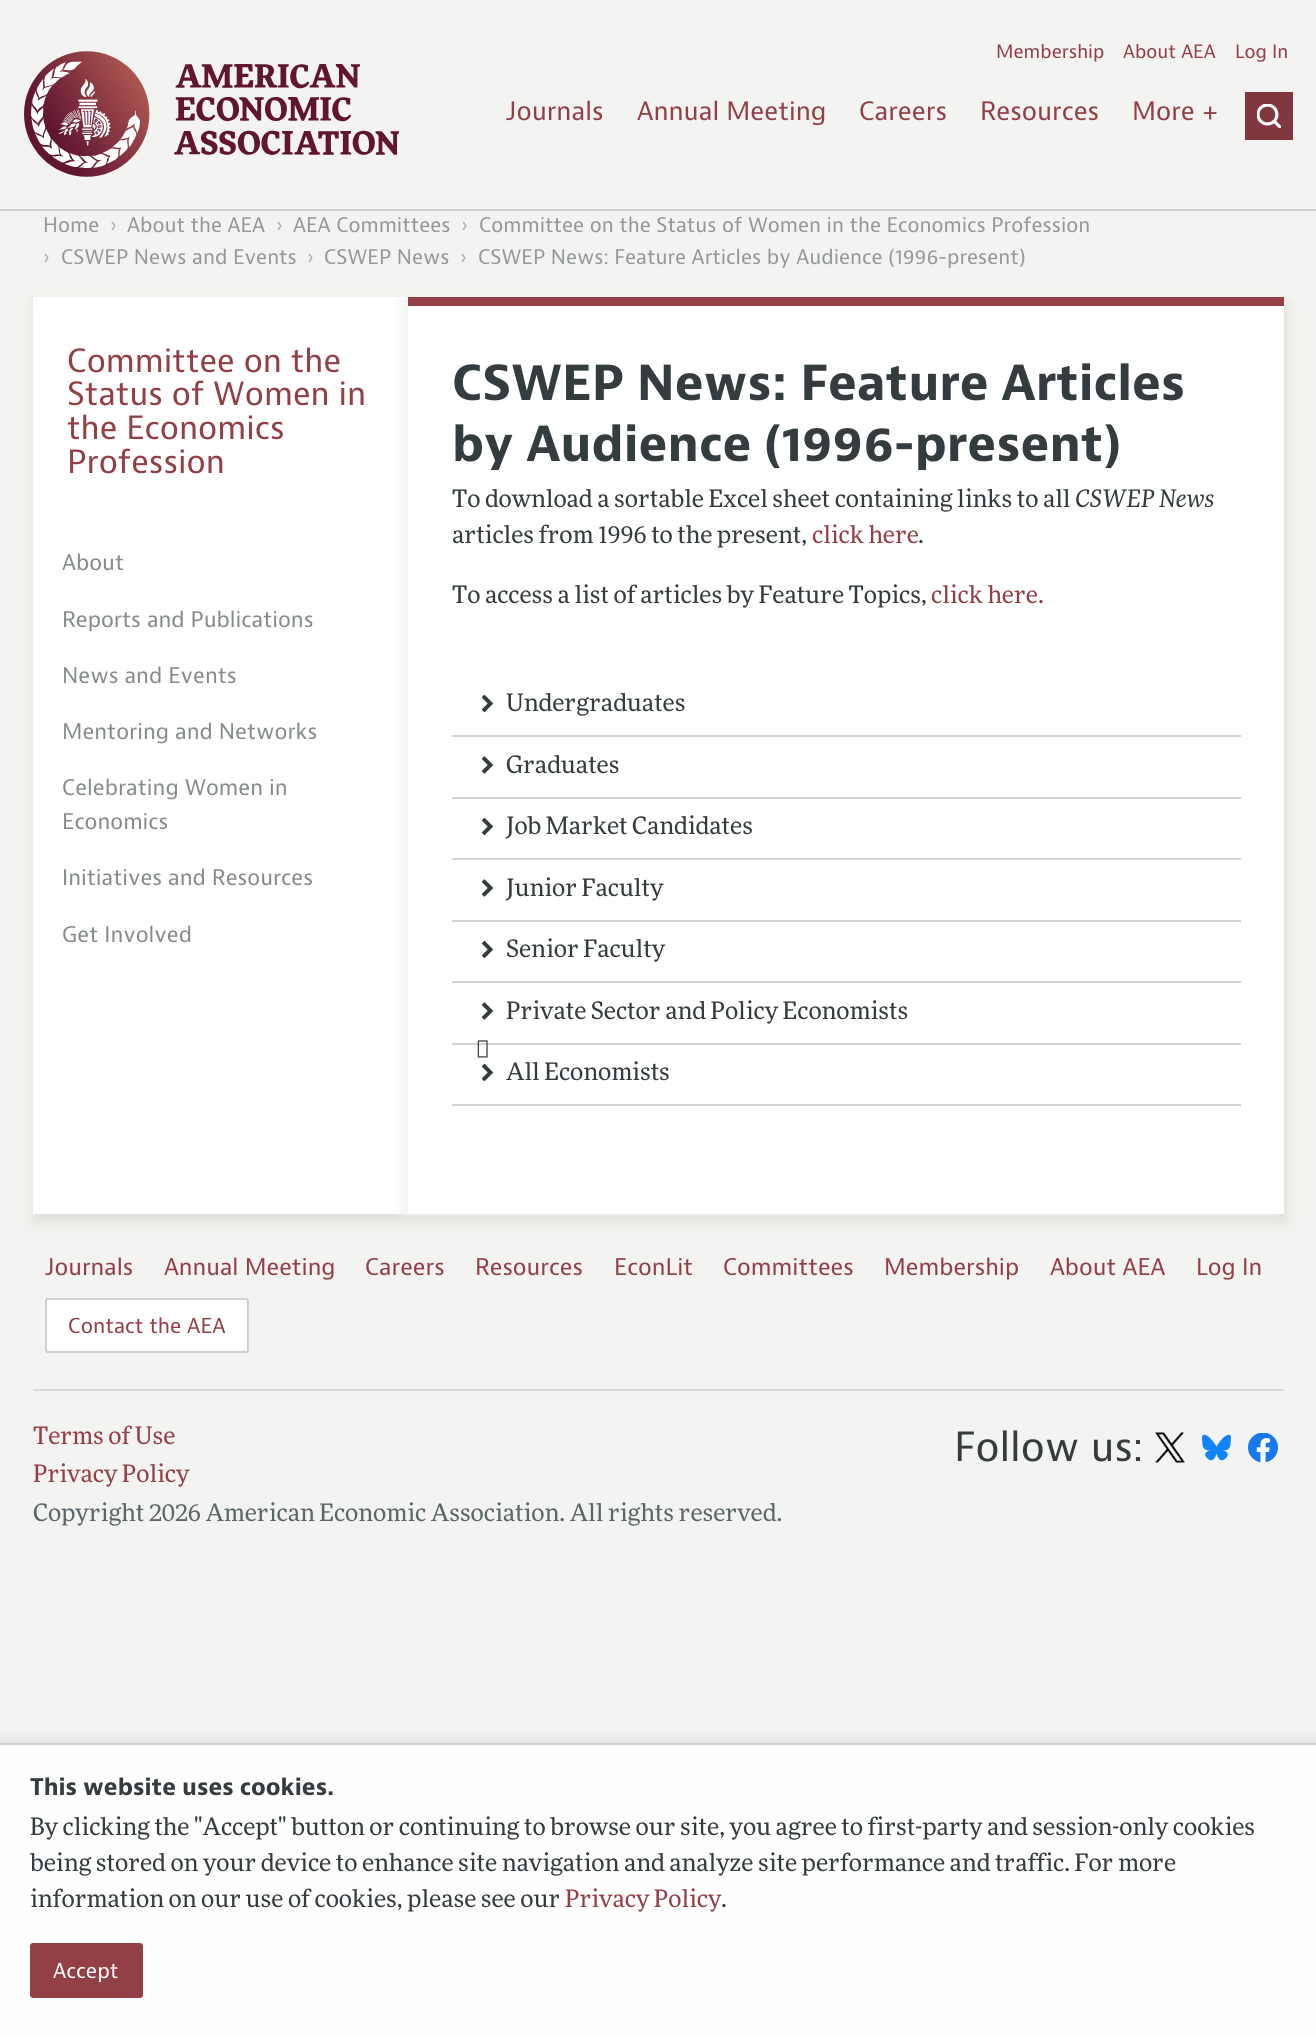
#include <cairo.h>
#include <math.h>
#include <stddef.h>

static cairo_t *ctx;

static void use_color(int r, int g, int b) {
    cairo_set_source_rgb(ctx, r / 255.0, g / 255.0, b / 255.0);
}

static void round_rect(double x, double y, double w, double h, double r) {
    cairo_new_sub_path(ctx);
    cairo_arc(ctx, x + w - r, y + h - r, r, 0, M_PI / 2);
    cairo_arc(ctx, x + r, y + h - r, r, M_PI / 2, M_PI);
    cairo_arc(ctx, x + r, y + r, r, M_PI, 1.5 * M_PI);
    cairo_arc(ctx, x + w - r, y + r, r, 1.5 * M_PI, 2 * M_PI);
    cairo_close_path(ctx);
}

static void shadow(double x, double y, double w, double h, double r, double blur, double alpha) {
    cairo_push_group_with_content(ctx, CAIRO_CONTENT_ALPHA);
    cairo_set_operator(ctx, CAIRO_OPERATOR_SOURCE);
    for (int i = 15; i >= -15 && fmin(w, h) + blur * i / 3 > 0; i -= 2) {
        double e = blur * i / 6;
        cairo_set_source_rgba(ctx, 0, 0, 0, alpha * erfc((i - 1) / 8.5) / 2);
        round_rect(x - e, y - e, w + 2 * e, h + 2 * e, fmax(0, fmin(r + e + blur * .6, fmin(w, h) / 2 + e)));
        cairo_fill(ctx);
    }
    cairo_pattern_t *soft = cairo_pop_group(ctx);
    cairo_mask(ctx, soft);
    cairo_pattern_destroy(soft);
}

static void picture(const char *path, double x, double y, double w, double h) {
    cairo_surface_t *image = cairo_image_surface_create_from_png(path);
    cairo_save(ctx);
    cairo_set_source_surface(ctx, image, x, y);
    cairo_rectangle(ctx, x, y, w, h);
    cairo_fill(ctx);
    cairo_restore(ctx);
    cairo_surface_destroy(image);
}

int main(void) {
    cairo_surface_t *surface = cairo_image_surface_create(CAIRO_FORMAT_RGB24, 1316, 2035);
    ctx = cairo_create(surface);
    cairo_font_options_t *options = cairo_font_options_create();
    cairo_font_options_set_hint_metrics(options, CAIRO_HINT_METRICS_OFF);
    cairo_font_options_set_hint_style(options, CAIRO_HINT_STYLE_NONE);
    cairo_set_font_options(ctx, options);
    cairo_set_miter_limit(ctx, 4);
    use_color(243, 243, 241);
    cairo_paint(ctx);
    picture("img1.png", 24, 51, 375, 126);
    cairo_select_font_face(ctx, "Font", CAIRO_FONT_SLANT_NORMAL, CAIRO_FONT_WEIGHT_NORMAL);
    cairo_set_font_size(ctx, 19.25);
    use_color(146, 64, 70);
    cairo_move_to(ctx, 996, 58);
    cairo_show_text(ctx, "Membership");
    cairo_move_to(ctx, 1123, 58);
    cairo_show_text(ctx, "About AEA");
    cairo_move_to(ctx, 1235, 58);
    cairo_show_text(ctx, "Log In");
    cairo_set_font_size(ctx, 26.5);
    cairo_move_to(ctx, 506, 120);
    cairo_show_text(ctx, "Journals");
    cairo_move_to(ctx, 637, 120);
    cairo_show_text(ctx, "Annual Meeting");
    cairo_move_to(ctx, 859, 120);
    cairo_show_text(ctx, "Careers");
    cairo_move_to(ctx, 980, 120);
    cairo_show_text(ctx, "Resources");
    cairo_move_to(ctx, 1132, 120);
    cairo_show_text(ctx, "More +");
    use_color(128, 56, 62);
    cairo_rectangle(ctx, 1245, 92, 48, 48);
    cairo_fill(ctx);
    picture("img2.png", 1257, 104, 24, 24);
    use_color(207, 207, 207);
    cairo_rectangle(ctx, 0, 209, 1316, 2);
    cairo_fill(ctx);
    cairo_set_font_size(ctx, 21);
    use_color(147, 152, 152);
    cairo_move_to(ctx, 43, 232);
    cairo_show_text(ctx, "Home");
    use_color(173, 177, 177);
    cairo_move_to(ctx, 110, 232);
    cairo_show_text(ctx, "›");
    use_color(147, 152, 152);
    cairo_move_to(ctx, 127, 232);
    cairo_show_text(ctx, "About the AEA");
    use_color(173, 177, 177);
    cairo_move_to(ctx, 276, 232);
    cairo_show_text(ctx, "›");
    use_color(147, 152, 152);
    cairo_move_to(ctx, 293, 232);
    cairo_show_text(ctx, "AEA Committees");
    use_color(173, 177, 177);
    cairo_move_to(ctx, 461, 232);
    cairo_show_text(ctx, "›");
    use_color(147, 152, 152);
    cairo_move_to(ctx, 479, 232);
    cairo_show_text(ctx, "Committee on the Status of Women in the Economics Profession");
    use_color(173, 177, 177);
    cairo_move_to(ctx, 43, 264);
    cairo_show_text(ctx, "›");
    use_color(147, 152, 152);
    cairo_move_to(ctx, 61, 264);
    cairo_show_text(ctx, "CSWEP News and Events");
    use_color(173, 177, 177);
    cairo_move_to(ctx, 307, 264);
    cairo_show_text(ctx, "›");
    use_color(147, 152, 152);
    cairo_move_to(ctx, 324, 264);
    cairo_show_text(ctx, "CSWEP News");
    use_color(173, 177, 177);
    cairo_move_to(ctx, 460, 264);
    cairo_show_text(ctx, "›");
    use_color(147, 152, 152);
    cairo_move_to(ctx, 478, 264);
    cairo_show_text(ctx, "CSWEP News: Feature Articles by Audience (1996-present)");
    use_color(219, 219, 214);
    shadow(35, 305, 1251, 916, 0, 7.5, 1);
    use_color(255, 255, 255);
    cairo_rectangle(ctx, 33, 297, 1251, 917);
    cairo_fill(ctx);
    cairo_set_font_size(ctx, 33.5);
    use_color(146, 64, 70);
    cairo_move_to(ctx, 67, 372);
    cairo_show_text(ctx, "Committee on the");
    cairo_move_to(ctx, 67, 405);
    cairo_show_text(ctx, "Status of Women in");
    cairo_move_to(ctx, 67, 439);
    cairo_show_text(ctx, "the Economics");
    cairo_move_to(ctx, 67, 473);
    cairo_show_text(ctx, "Profession");
    cairo_set_font_size(ctx, 22.5);
    use_color(134, 139, 140);
    cairo_move_to(ctx, 62, 570);
    cairo_show_text(ctx, "About");
    cairo_move_to(ctx, 62, 627);
    cairo_show_text(ctx, "Reports and Publications");
    cairo_move_to(ctx, 62, 683);
    cairo_show_text(ctx, "News and Events");
    cairo_move_to(ctx, 62, 739);
    cairo_show_text(ctx, "Mentoring and Networks");
    cairo_move_to(ctx, 62, 795);
    cairo_show_text(ctx, "Celebrating Women in");
    cairo_move_to(ctx, 62, 829);
    cairo_show_text(ctx, "Economics");
    cairo_move_to(ctx, 62, 885);
    cairo_show_text(ctx, "Initiatives and Resources");
    cairo_move_to(ctx, 62, 942);
    cairo_show_text(ctx, "Get Involved");
    cairo_save(ctx);
    cairo_set_fill_rule(ctx, CAIRO_FILL_RULE_EVEN_ODD);
    cairo_new_path(ctx);
    cairo_move_to(ctx, 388, 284);
    cairo_line_to(ctx, 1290, 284);
    cairo_line_to(ctx, 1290, 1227);
    cairo_line_to(ctx, 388, 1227);
    cairo_close_path(ctx);
    cairo_move_to(ctx, 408, 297);
    cairo_line_to(ctx, 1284, 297);
    cairo_line_to(ctx, 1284, 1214);
    cairo_line_to(ctx, 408, 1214);
    cairo_close_path(ctx);
    cairo_clip(ctx);
    use_color(243, 243, 241);
    shadow(401, 297, 876, 917, 0, 4, 1);
    cairo_restore(ctx);
    use_color(146, 64, 70);
    cairo_rectangle(ctx, 408, 297, 876, 9);
    cairo_fill(ctx);
    cairo_select_font_face(ctx, "Font", CAIRO_FONT_SLANT_NORMAL, CAIRO_FONT_WEIGHT_BOLD);
    cairo_set_font_size(ctx, 50.4);
    use_color(53, 60, 63);
    cairo_move_to(ctx, 452, 400);
    cairo_show_text(ctx, "CSWEP News: Feature Articles");
    cairo_move_to(ctx, 452, 461);
    cairo_show_text(ctx, "by Audience (1996-present)");
    cairo_select_font_face(ctx, "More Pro", CAIRO_FONT_SLANT_NORMAL, CAIRO_FONT_WEIGHT_NORMAL);
    cairo_set_font_size(ctx, 24);
    cairo_move_to(ctx, 452, 507);
    cairo_show_text(ctx, "To download a sortable Excel sheet containing links to all");
    cairo_select_font_face(ctx, "More Pro", CAIRO_FONT_SLANT_ITALIC, CAIRO_FONT_WEIGHT_NORMAL);
    cairo_move_to(ctx, 1075, 507);
    cairo_show_text(ctx, "CSWEP News");
    cairo_select_font_face(ctx, "More Pro", CAIRO_FONT_SLANT_NORMAL, CAIRO_FONT_WEIGHT_NORMAL);
    cairo_move_to(ctx, 452, 543);
    cairo_show_text(ctx, "articles from 1996 to the present,");
    use_color(146, 64, 70);
    cairo_move_to(ctx, 812, 543);
    cairo_show_text(ctx, "click here");
    use_color(53, 60, 63);
    cairo_move_to(ctx, 918, 543);
    cairo_show_text(ctx, ".");
    cairo_move_to(ctx, 452, 603);
    cairo_show_text(ctx, "To access a list of articles by Feature Topics,");
    use_color(146, 64, 70);
    cairo_move_to(ctx, 931, 603);
    cairo_show_text(ctx, "click here.");
    use_color(211, 211, 211);
    cairo_rectangle(ctx, 452, 735, 789, 2);
    cairo_fill(ctx);
    picture("img3.png", 481, 694, 12, 19);
    use_color(53, 60, 63);
    cairo_move_to(ctx, 506, 711);
    cairo_show_text(ctx, "Undergraduates");
    use_color(211, 211, 211);
    cairo_rectangle(ctx, 452, 797, 789, 2);
    cairo_fill(ctx);
    picture("img4.png", 481, 756, 12, 18);
    use_color(53, 60, 63);
    cairo_move_to(ctx, 506, 773);
    cairo_show_text(ctx, "Graduates");
    use_color(211, 211, 211);
    cairo_rectangle(ctx, 452, 858, 789, 2);
    cairo_fill(ctx);
    picture("img3.png", 481, 817, 12, 19);
    use_color(53, 60, 63);
    cairo_move_to(ctx, 506, 834);
    cairo_show_text(ctx, "Job Market Candidates");
    use_color(211, 211, 211);
    cairo_rectangle(ctx, 452, 920, 789, 2);
    cairo_fill(ctx);
    picture("img4.png", 481, 879, 12, 18);
    use_color(53, 60, 63);
    cairo_move_to(ctx, 506, 896);
    cairo_show_text(ctx, "Junior Faculty");
    use_color(211, 211, 211);
    cairo_rectangle(ctx, 452, 981, 789, 2);
    cairo_fill(ctx);
    picture("img3.png", 481, 940, 12, 19);
    use_color(53, 60, 63);
    cairo_move_to(ctx, 506, 957);
    cairo_show_text(ctx, "Senior Faculty");
    use_color(211, 211, 211);
    cairo_rectangle(ctx, 452, 1043, 789, 2);
    cairo_fill(ctx);
    picture("img4.png", 481, 1002, 12, 18);
    use_color(53, 60, 63);
    cairo_move_to(ctx, 506, 1019);
    cairo_show_text(ctx, "Private Sector and Policy Economists");
    picture("img5.png", 477, 1040, 11, 18);
    use_color(211, 211, 211);
    cairo_rectangle(ctx, 452, 1104, 789, 2);
    cairo_fill(ctx);
    picture("img3.png", 481, 1063, 12, 19);
    use_color(53, 60, 63);
    cairo_move_to(ctx, 506, 1080);
    cairo_show_text(ctx, "All Economists");
    use_color(219, 219, 219);
    cairo_rectangle(ctx, 33, 1389, 1251, 2);
    cairo_fill(ctx);
    cairo_select_font_face(ctx, "Font", CAIRO_FONT_SLANT_NORMAL, CAIRO_FONT_WEIGHT_NORMAL);
    use_color(146, 64, 70);
    cairo_move_to(ctx, 45, 1275);
    cairo_show_text(ctx, "Journals");
    cairo_move_to(ctx, 164, 1275);
    cairo_show_text(ctx, "Annual Meeting");
    cairo_move_to(ctx, 365, 1275);
    cairo_show_text(ctx, "Careers");
    cairo_move_to(ctx, 475, 1275);
    cairo_show_text(ctx, "Resources");
    cairo_move_to(ctx, 614, 1275);
    cairo_show_text(ctx, "EconLit");
    cairo_move_to(ctx, 723, 1275);
    cairo_show_text(ctx, "Committees");
    cairo_move_to(ctx, 884, 1275);
    cairo_show_text(ctx, "Membership");
    cairo_move_to(ctx, 1050, 1275);
    cairo_show_text(ctx, "About AEA");
    cairo_move_to(ctx, 1196, 1275);
    cairo_show_text(ctx, "Log In");
    use_color(255, 255, 255);
    round_rect(46, 1299, 202, 53, 2);
    cairo_fill_preserve(ctx);
    use_color(207, 207, 207);
    cairo_stroke(ctx);
    cairo_set_font_size(ctx, 21.5);
    use_color(146, 64, 70);
    cairo_move_to(ctx, 68, 1333);
    cairo_show_text(ctx, "Contact the AEA");
    cairo_select_font_face(ctx, "More Pro", CAIRO_FONT_SLANT_NORMAL, CAIRO_FONT_WEIGHT_NORMAL);
    cairo_set_font_size(ctx, 24);
    cairo_move_to(ctx, 33, 1444);
    cairo_show_text(ctx, "Terms of Use");
    cairo_move_to(ctx, 33, 1482);
    cairo_show_text(ctx, "Privacy Policy");
    use_color(91, 102, 106);
    cairo_move_to(ctx, 33, 1521);
    cairo_show_text(ctx, "Copyright 2026 American Economic Association. All rights reserved.");
    cairo_select_font_face(ctx, "Font", CAIRO_FONT_SLANT_NORMAL, CAIRO_FONT_WEIGHT_NORMAL);
    cairo_set_font_size(ctx, 42);
    use_color(53, 60, 63);
    cairo_move_to(ctx, 954, 1461);
    cairo_show_text(ctx, "Follow us:");
    picture("img6.png", 1155, 1432, 30, 31);
    picture("img7.png", 1202, 1434, 29, 27);
    picture("img8.png", 1248, 1433, 30, 30);
    use_color(204, 204, 204);
    shadow(-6, 1745, 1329, 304, 0, 7.5, 0.95);
    use_color(254, 254, 254);
    cairo_rectangle(ctx, 0, 1745, 1316, 290);
    cairo_fill(ctx);
    use_color(207, 207, 207);
    cairo_rectangle(ctx, 0, 1743, 1316, 2);
    cairo_fill(ctx);
    cairo_select_font_face(ctx, "Font", CAIRO_FONT_SLANT_NORMAL, CAIRO_FONT_WEIGHT_BOLD);
    cairo_set_font_size(ctx, 24);
    use_color(53, 60, 63);
    cairo_move_to(ctx, 30, 1795);
    cairo_show_text(ctx, "This website uses cookies.");
    cairo_select_font_face(ctx, "More Pro", CAIRO_FONT_SLANT_NORMAL, CAIRO_FONT_WEIGHT_NORMAL);
    cairo_move_to(ctx, 30, 1835);
    cairo_show_text(ctx, "By clicking the \"Accept\" button or continuing to browse our site, you agree to first-party and session-only cookies");
    cairo_move_to(ctx, 30, 1871);
    cairo_show_text(ctx, "being stored on your device to enhance site navigation and analyze site performance and traffic. For more");
    cairo_move_to(ctx, 30, 1907);
    cairo_show_text(ctx, "information on our use of cookies, please see our");
    use_color(146, 64, 70);
    cairo_move_to(ctx, 565, 1907);
    cairo_show_text(ctx, "Privacy Policy");
    use_color(53, 60, 63);
    cairo_move_to(ctx, 721, 1907);
    cairo_show_text(ctx, ".");
    use_color(146, 64, 70);
    round_rect(31, 1944, 111, 53, 2);
    cairo_fill_preserve(ctx);
    cairo_stroke(ctx);
    cairo_select_font_face(ctx, "Font", CAIRO_FONT_SLANT_NORMAL, CAIRO_FONT_WEIGHT_NORMAL);
    cairo_set_font_size(ctx, 21.5);
    use_color(255, 255, 255);
    cairo_move_to(ctx, 53, 1978);
    cairo_show_text(ctx, "Accept");
    cairo_surface_write_to_png(surface, "result.png");
    cairo_font_options_destroy(options);
    cairo_destroy(ctx);
    cairo_surface_destroy(surface);
    return 0;
}
